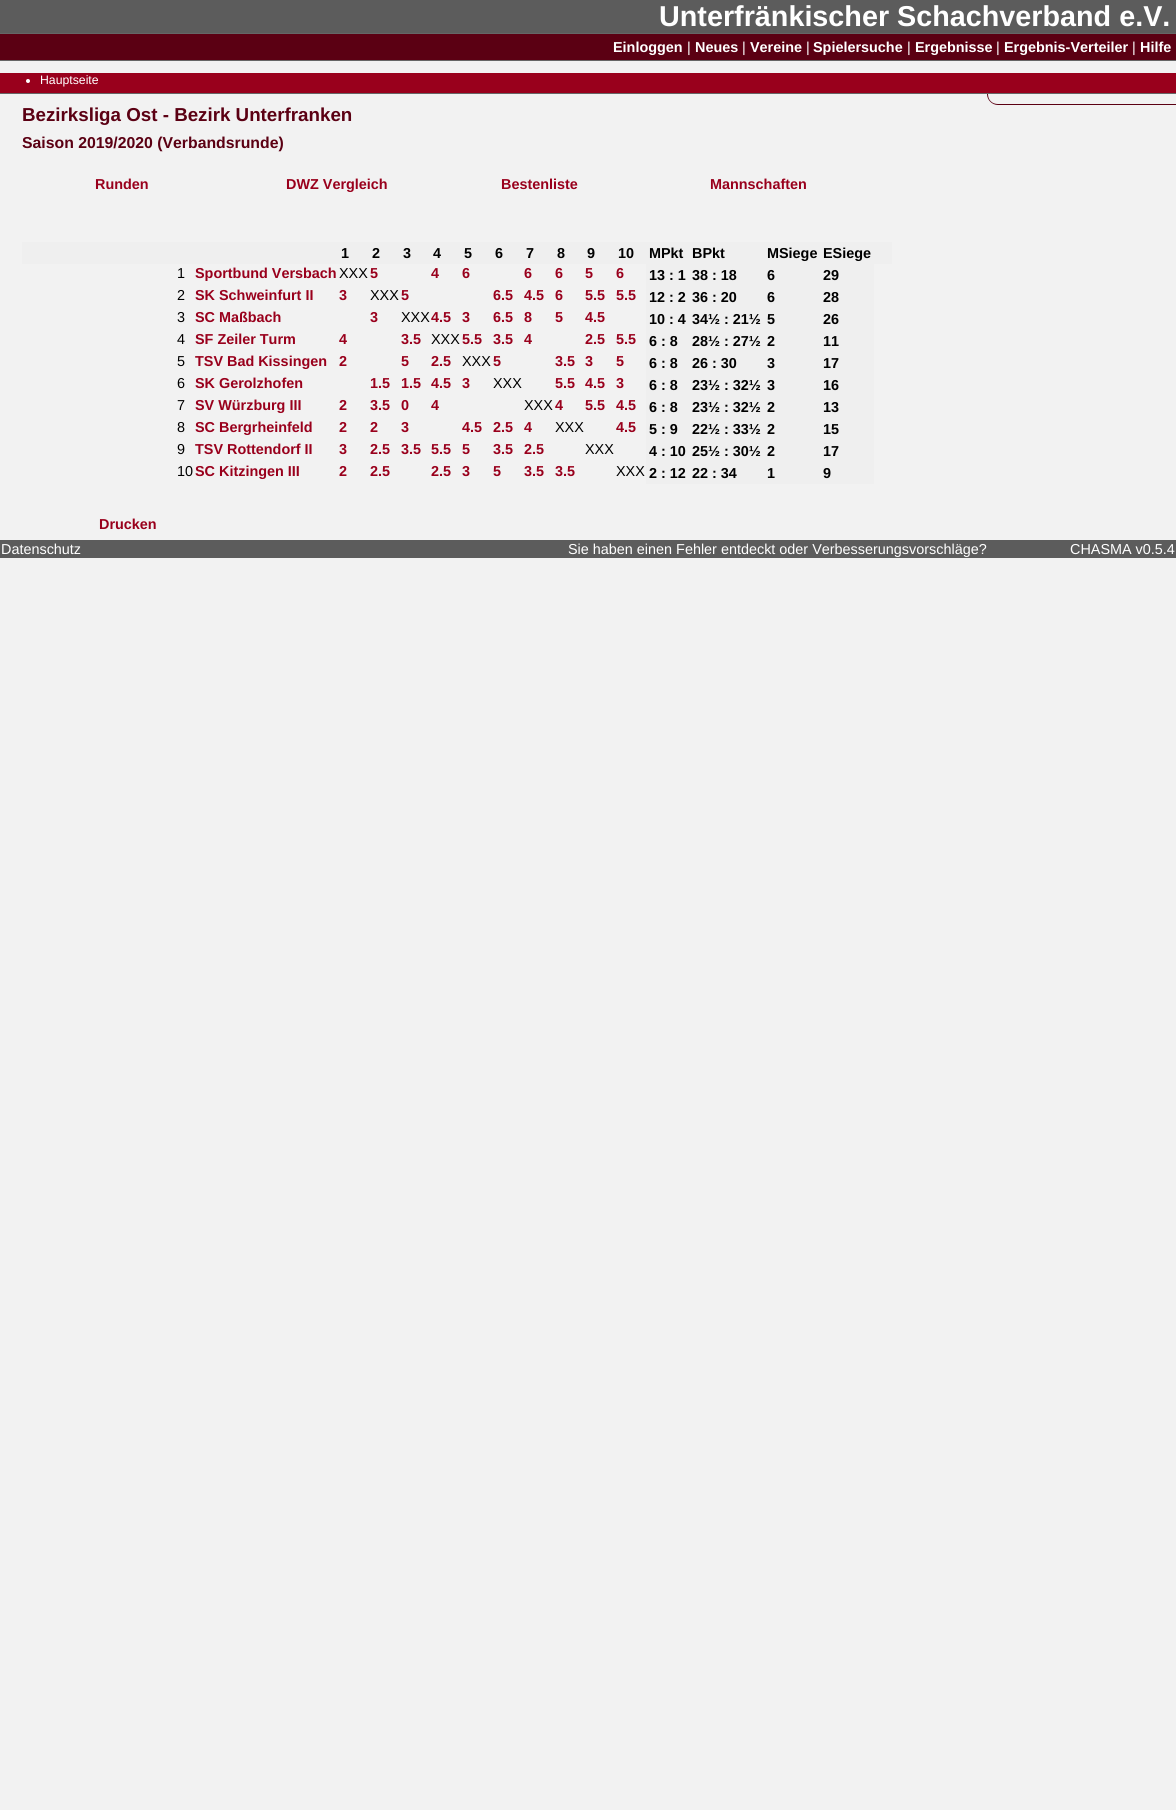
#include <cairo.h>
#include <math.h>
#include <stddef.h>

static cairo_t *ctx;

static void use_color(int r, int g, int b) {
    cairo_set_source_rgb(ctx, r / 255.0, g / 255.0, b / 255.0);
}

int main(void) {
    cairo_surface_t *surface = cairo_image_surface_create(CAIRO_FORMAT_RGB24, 1176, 1810);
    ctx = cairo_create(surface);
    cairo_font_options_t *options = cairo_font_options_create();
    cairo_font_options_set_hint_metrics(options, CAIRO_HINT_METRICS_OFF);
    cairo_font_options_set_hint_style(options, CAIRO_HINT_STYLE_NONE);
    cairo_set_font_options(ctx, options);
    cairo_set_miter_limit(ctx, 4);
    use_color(242, 242, 242);
    cairo_paint(ctx);
    use_color(92, 92, 92);
    cairo_rectangle(ctx, 0, 0, 1176, 33);
    cairo_fill(ctx);
    cairo_select_font_face(ctx, "Liberation Sans", CAIRO_FONT_SLANT_NORMAL, CAIRO_FONT_WEIGHT_BOLD);
    cairo_set_font_size(ctx, 28.75);
    use_color(255, 255, 255);
    cairo_move_to(ctx, 659, 26);
    cairo_show_text(ctx, "Unterfränkischer Schachverband e.V.");
    use_color(91, 0, 19);
    cairo_rectangle(ctx, 0, 34, 1176, 26);
    cairo_fill(ctx);
    use_color(102, 102, 102);
    cairo_rectangle(ctx, 0, 33, 1176, 1);
    cairo_fill(ctx);
    cairo_rectangle(ctx, 0, 60, 1176, 1);
    cairo_fill(ctx);
    cairo_set_font_size(ctx, 14.4);
    use_color(255, 255, 255);
    cairo_move_to(ctx, 613, 52);
    cairo_show_text(ctx, "Einloggen");
    cairo_select_font_face(ctx, "Liberation Sans", CAIRO_FONT_SLANT_NORMAL, CAIRO_FONT_WEIGHT_NORMAL);
    cairo_move_to(ctx, 687, 52);
    cairo_show_text(ctx, "|");
    cairo_select_font_face(ctx, "Liberation Sans", CAIRO_FONT_SLANT_NORMAL, CAIRO_FONT_WEIGHT_BOLD);
    cairo_move_to(ctx, 695, 52);
    cairo_show_text(ctx, "Neues");
    cairo_select_font_face(ctx, "Liberation Sans", CAIRO_FONT_SLANT_NORMAL, CAIRO_FONT_WEIGHT_NORMAL);
    cairo_move_to(ctx, 742, 52);
    cairo_show_text(ctx, "|");
    cairo_select_font_face(ctx, "Liberation Sans", CAIRO_FONT_SLANT_NORMAL, CAIRO_FONT_WEIGHT_BOLD);
    cairo_move_to(ctx, 750, 52);
    cairo_show_text(ctx, "Vereine");
    cairo_select_font_face(ctx, "Liberation Sans", CAIRO_FONT_SLANT_NORMAL, CAIRO_FONT_WEIGHT_NORMAL);
    cairo_move_to(ctx, 806, 52);
    cairo_show_text(ctx, "|");
    cairo_select_font_face(ctx, "Liberation Sans", CAIRO_FONT_SLANT_NORMAL, CAIRO_FONT_WEIGHT_BOLD);
    cairo_move_to(ctx, 813, 52);
    cairo_show_text(ctx, "Spielersuche");
    cairo_select_font_face(ctx, "Liberation Sans", CAIRO_FONT_SLANT_NORMAL, CAIRO_FONT_WEIGHT_NORMAL);
    cairo_move_to(ctx, 907, 52);
    cairo_show_text(ctx, "|");
    cairo_select_font_face(ctx, "Liberation Sans", CAIRO_FONT_SLANT_NORMAL, CAIRO_FONT_WEIGHT_BOLD);
    cairo_move_to(ctx, 915, 52);
    cairo_show_text(ctx, "Ergebnisse");
    cairo_select_font_face(ctx, "Liberation Sans", CAIRO_FONT_SLANT_NORMAL, CAIRO_FONT_WEIGHT_NORMAL);
    cairo_move_to(ctx, 996, 52);
    cairo_show_text(ctx, "|");
    cairo_select_font_face(ctx, "Liberation Sans", CAIRO_FONT_SLANT_NORMAL, CAIRO_FONT_WEIGHT_BOLD);
    cairo_move_to(ctx, 1004, 52);
    cairo_show_text(ctx, "Ergebnis-Verteiler");
    cairo_select_font_face(ctx, "Liberation Sans", CAIRO_FONT_SLANT_NORMAL, CAIRO_FONT_WEIGHT_NORMAL);
    cairo_move_to(ctx, 1132, 52);
    cairo_show_text(ctx, "|");
    cairo_select_font_face(ctx, "Liberation Sans", CAIRO_FONT_SLANT_NORMAL, CAIRO_FONT_WEIGHT_BOLD);
    cairo_move_to(ctx, 1140, 52);
    cairo_show_text(ctx, "Hilfe");
    use_color(153, 0, 28);
    cairo_rectangle(ctx, 0, 73, 1176, 20);
    cairo_fill(ctx);
    use_color(102, 102, 102);
    cairo_rectangle(ctx, 0, 93, 1176, 1);
    cairo_fill(ctx);
    use_color(255, 255, 255);
    cairo_arc(ctx, 28, 81, 2, 0, 2 * M_PI);
    cairo_fill(ctx);
    cairo_select_font_face(ctx, "Liberation Sans", CAIRO_FONT_SLANT_NORMAL, CAIRO_FONT_WEIGHT_NORMAL);
    cairo_set_font_size(ctx, 12.25);
    cairo_move_to(ctx, 40, 84);
    cairo_show_text(ctx, "Hauptseite");
    use_color(91, 0, 19);
    cairo_set_fill_rule(ctx, CAIRO_FILL_RULE_EVEN_ODD);
    cairo_new_path(ctx);
    cairo_move_to(ctx, 987, 94);
    cairo_line_to(ctx, 1176, 94);
    cairo_line_to(ctx, 1176, 105);
    cairo_line_to(ctx, 998, 105);
    cairo_curve_to(ctx, 992, 105, 987, 100, 987, 94);
    cairo_close_path(ctx);
    cairo_move_to(ctx, 988, 94);
    cairo_line_to(ctx, 1176, 94);
    cairo_line_to(ctx, 1176, 104);
    cairo_line_to(ctx, 998, 104);
    cairo_curve_to(ctx, 992, 104, 988, 100, 988, 94);
    cairo_close_path(ctx);
    cairo_fill(ctx);
    cairo_select_font_face(ctx, "Liberation Sans", CAIRO_FONT_SLANT_NORMAL, CAIRO_FONT_WEIGHT_BOLD);
    cairo_set_font_size(ctx, 18.75);
    cairo_move_to(ctx, 22, 121);
    cairo_show_text(ctx, "Bezirksliga Ost - Bezirk Unterfranken");
    cairo_set_font_size(ctx, 15.8);
    cairo_move_to(ctx, 22, 148);
    cairo_show_text(ctx, "Saison 2019/2020 (Verbandsrunde)");
    cairo_set_font_size(ctx, 14.4);
    use_color(153, 0, 28);
    cairo_move_to(ctx, 95, 189);
    cairo_show_text(ctx, "Runden");
    cairo_move_to(ctx, 286, 189);
    cairo_show_text(ctx, "DWZ Vergleich");
    cairo_move_to(ctx, 501, 189);
    cairo_show_text(ctx, "Bestenliste");
    cairo_move_to(ctx, 710, 189);
    cairo_show_text(ctx, "Mannschaften");
    use_color(239, 239, 239);
    cairo_rectangle(ctx, 22, 242, 870, 22);
    cairo_fill(ctx);
    use_color(0, 0, 0);
    cairo_move_to(ctx, 341, 258);
    cairo_show_text(ctx, "1");
    cairo_move_to(ctx, 372, 258);
    cairo_show_text(ctx, "2");
    cairo_move_to(ctx, 403, 258);
    cairo_show_text(ctx, "3");
    cairo_move_to(ctx, 433, 258);
    cairo_show_text(ctx, "4");
    cairo_move_to(ctx, 464, 258);
    cairo_show_text(ctx, "5");
    cairo_move_to(ctx, 495, 258);
    cairo_show_text(ctx, "6");
    cairo_move_to(ctx, 526, 258);
    cairo_show_text(ctx, "7");
    cairo_move_to(ctx, 557, 258);
    cairo_show_text(ctx, "8");
    cairo_move_to(ctx, 587, 258);
    cairo_show_text(ctx, "9");
    cairo_move_to(ctx, 618, 258);
    cairo_show_text(ctx, "10");
    cairo_move_to(ctx, 649, 258);
    cairo_show_text(ctx, "MPkt");
    cairo_move_to(ctx, 692, 258);
    cairo_show_text(ctx, "BPkt");
    cairo_move_to(ctx, 767, 258);
    cairo_show_text(ctx, "MSiege");
    cairo_move_to(ctx, 823, 258);
    cairo_show_text(ctx, "ESiege");
    cairo_select_font_face(ctx, "Liberation Sans", CAIRO_FONT_SLANT_NORMAL, CAIRO_FONT_WEIGHT_NORMAL);
    cairo_move_to(ctx, 177, 278);
    cairo_show_text(ctx, "1");
    cairo_select_font_face(ctx, "Liberation Sans", CAIRO_FONT_SLANT_NORMAL, CAIRO_FONT_WEIGHT_BOLD);
    use_color(153, 0, 28);
    cairo_move_to(ctx, 195, 278);
    cairo_show_text(ctx, "Sportbund Versbach");
    cairo_select_font_face(ctx, "Liberation Sans", CAIRO_FONT_SLANT_NORMAL, CAIRO_FONT_WEIGHT_NORMAL);
    use_color(0, 0, 0);
    cairo_move_to(ctx, 339, 278);
    cairo_show_text(ctx, "XXX");
    cairo_select_font_face(ctx, "Liberation Sans", CAIRO_FONT_SLANT_NORMAL, CAIRO_FONT_WEIGHT_BOLD);
    use_color(153, 0, 28);
    cairo_move_to(ctx, 370, 278);
    cairo_show_text(ctx, "5");
    cairo_move_to(ctx, 431, 278);
    cairo_show_text(ctx, "4");
    cairo_move_to(ctx, 462, 278);
    cairo_show_text(ctx, "6");
    cairo_move_to(ctx, 524, 278);
    cairo_show_text(ctx, "6");
    cairo_move_to(ctx, 555, 278);
    cairo_show_text(ctx, "6");
    cairo_move_to(ctx, 585, 278);
    cairo_show_text(ctx, "5");
    cairo_move_to(ctx, 616, 278);
    cairo_show_text(ctx, "6");
    use_color(239, 239, 239);
    cairo_rectangle(ctx, 646, 264, 228, 22);
    cairo_fill(ctx);
    use_color(0, 0, 0);
    cairo_move_to(ctx, 649, 280);
    cairo_show_text(ctx, "13 : 1");
    cairo_move_to(ctx, 692, 280);
    cairo_show_text(ctx, "38 : 18");
    cairo_move_to(ctx, 767, 280);
    cairo_show_text(ctx, "6");
    cairo_move_to(ctx, 823, 280);
    cairo_show_text(ctx, "29");
    cairo_select_font_face(ctx, "Liberation Sans", CAIRO_FONT_SLANT_NORMAL, CAIRO_FONT_WEIGHT_NORMAL);
    cairo_move_to(ctx, 177, 300);
    cairo_show_text(ctx, "2");
    cairo_select_font_face(ctx, "Liberation Sans", CAIRO_FONT_SLANT_NORMAL, CAIRO_FONT_WEIGHT_BOLD);
    use_color(153, 0, 28);
    cairo_move_to(ctx, 195, 300);
    cairo_show_text(ctx, "SK Schweinfurt II");
    cairo_move_to(ctx, 339, 300);
    cairo_show_text(ctx, "3");
    cairo_select_font_face(ctx, "Liberation Sans", CAIRO_FONT_SLANT_NORMAL, CAIRO_FONT_WEIGHT_NORMAL);
    use_color(0, 0, 0);
    cairo_move_to(ctx, 370, 300);
    cairo_show_text(ctx, "XXX");
    cairo_select_font_face(ctx, "Liberation Sans", CAIRO_FONT_SLANT_NORMAL, CAIRO_FONT_WEIGHT_BOLD);
    use_color(153, 0, 28);
    cairo_move_to(ctx, 401, 300);
    cairo_show_text(ctx, "5");
    cairo_move_to(ctx, 493, 300);
    cairo_show_text(ctx, "6.5");
    cairo_move_to(ctx, 524, 300);
    cairo_show_text(ctx, "4.5");
    cairo_move_to(ctx, 555, 300);
    cairo_show_text(ctx, "6");
    cairo_move_to(ctx, 585, 300);
    cairo_show_text(ctx, "5.5");
    cairo_move_to(ctx, 616, 300);
    cairo_show_text(ctx, "5.5");
    use_color(239, 239, 239);
    cairo_rectangle(ctx, 646, 286, 228, 22);
    cairo_fill(ctx);
    use_color(0, 0, 0);
    cairo_move_to(ctx, 649, 302);
    cairo_show_text(ctx, "12 : 2");
    cairo_move_to(ctx, 692, 302);
    cairo_show_text(ctx, "36 : 20");
    cairo_move_to(ctx, 767, 302);
    cairo_show_text(ctx, "6");
    cairo_move_to(ctx, 823, 302);
    cairo_show_text(ctx, "28");
    cairo_select_font_face(ctx, "Liberation Sans", CAIRO_FONT_SLANT_NORMAL, CAIRO_FONT_WEIGHT_NORMAL);
    cairo_move_to(ctx, 177, 322);
    cairo_show_text(ctx, "3");
    cairo_select_font_face(ctx, "Liberation Sans", CAIRO_FONT_SLANT_NORMAL, CAIRO_FONT_WEIGHT_BOLD);
    use_color(153, 0, 28);
    cairo_move_to(ctx, 195, 322);
    cairo_show_text(ctx, "SC Maßbach");
    cairo_move_to(ctx, 370, 322);
    cairo_show_text(ctx, "3");
    cairo_select_font_face(ctx, "Liberation Sans", CAIRO_FONT_SLANT_NORMAL, CAIRO_FONT_WEIGHT_NORMAL);
    use_color(0, 0, 0);
    cairo_move_to(ctx, 401, 322);
    cairo_show_text(ctx, "XXX");
    cairo_select_font_face(ctx, "Liberation Sans", CAIRO_FONT_SLANT_NORMAL, CAIRO_FONT_WEIGHT_BOLD);
    use_color(153, 0, 28);
    cairo_move_to(ctx, 431, 322);
    cairo_show_text(ctx, "4.5");
    cairo_move_to(ctx, 462, 322);
    cairo_show_text(ctx, "3");
    cairo_move_to(ctx, 493, 322);
    cairo_show_text(ctx, "6.5");
    cairo_move_to(ctx, 524, 322);
    cairo_show_text(ctx, "8");
    cairo_move_to(ctx, 555, 322);
    cairo_show_text(ctx, "5");
    cairo_move_to(ctx, 585, 322);
    cairo_show_text(ctx, "4.5");
    use_color(239, 239, 239);
    cairo_rectangle(ctx, 646, 308, 228, 22);
    cairo_fill(ctx);
    use_color(0, 0, 0);
    cairo_move_to(ctx, 649, 324);
    cairo_show_text(ctx, "10 : 4");
    cairo_move_to(ctx, 692, 324);
    cairo_show_text(ctx, "34½ : 21½");
    cairo_move_to(ctx, 767, 324);
    cairo_show_text(ctx, "5");
    cairo_move_to(ctx, 823, 324);
    cairo_show_text(ctx, "26");
    cairo_select_font_face(ctx, "Liberation Sans", CAIRO_FONT_SLANT_NORMAL, CAIRO_FONT_WEIGHT_NORMAL);
    cairo_move_to(ctx, 177, 344);
    cairo_show_text(ctx, "4");
    cairo_select_font_face(ctx, "Liberation Sans", CAIRO_FONT_SLANT_NORMAL, CAIRO_FONT_WEIGHT_BOLD);
    use_color(153, 0, 28);
    cairo_move_to(ctx, 195, 344);
    cairo_show_text(ctx, "SF Zeiler Turm");
    cairo_move_to(ctx, 339, 344);
    cairo_show_text(ctx, "4");
    cairo_move_to(ctx, 401, 344);
    cairo_show_text(ctx, "3.5");
    cairo_select_font_face(ctx, "Liberation Sans", CAIRO_FONT_SLANT_NORMAL, CAIRO_FONT_WEIGHT_NORMAL);
    use_color(0, 0, 0);
    cairo_move_to(ctx, 431, 344);
    cairo_show_text(ctx, "XXX");
    cairo_select_font_face(ctx, "Liberation Sans", CAIRO_FONT_SLANT_NORMAL, CAIRO_FONT_WEIGHT_BOLD);
    use_color(153, 0, 28);
    cairo_move_to(ctx, 462, 344);
    cairo_show_text(ctx, "5.5");
    cairo_move_to(ctx, 493, 344);
    cairo_show_text(ctx, "3.5");
    cairo_move_to(ctx, 524, 344);
    cairo_show_text(ctx, "4");
    cairo_move_to(ctx, 585, 344);
    cairo_show_text(ctx, "2.5");
    cairo_move_to(ctx, 616, 344);
    cairo_show_text(ctx, "5.5");
    use_color(239, 239, 239);
    cairo_rectangle(ctx, 646, 330, 228, 22);
    cairo_fill(ctx);
    use_color(0, 0, 0);
    cairo_move_to(ctx, 649, 346);
    cairo_show_text(ctx, "6 : 8");
    cairo_move_to(ctx, 692, 346);
    cairo_show_text(ctx, "28½ : 27½");
    cairo_move_to(ctx, 767, 346);
    cairo_show_text(ctx, "2");
    cairo_move_to(ctx, 823, 346);
    cairo_show_text(ctx, "11");
    cairo_select_font_face(ctx, "Liberation Sans", CAIRO_FONT_SLANT_NORMAL, CAIRO_FONT_WEIGHT_NORMAL);
    cairo_move_to(ctx, 177, 366);
    cairo_show_text(ctx, "5");
    cairo_select_font_face(ctx, "Liberation Sans", CAIRO_FONT_SLANT_NORMAL, CAIRO_FONT_WEIGHT_BOLD);
    use_color(153, 0, 28);
    cairo_move_to(ctx, 195, 366);
    cairo_show_text(ctx, "TSV Bad Kissingen");
    cairo_move_to(ctx, 339, 366);
    cairo_show_text(ctx, "2");
    cairo_move_to(ctx, 401, 366);
    cairo_show_text(ctx, "5");
    cairo_move_to(ctx, 431, 366);
    cairo_show_text(ctx, "2.5");
    cairo_select_font_face(ctx, "Liberation Sans", CAIRO_FONT_SLANT_NORMAL, CAIRO_FONT_WEIGHT_NORMAL);
    use_color(0, 0, 0);
    cairo_move_to(ctx, 462, 366);
    cairo_show_text(ctx, "XXX");
    cairo_select_font_face(ctx, "Liberation Sans", CAIRO_FONT_SLANT_NORMAL, CAIRO_FONT_WEIGHT_BOLD);
    use_color(153, 0, 28);
    cairo_move_to(ctx, 493, 366);
    cairo_show_text(ctx, "5");
    cairo_move_to(ctx, 555, 366);
    cairo_show_text(ctx, "3.5");
    cairo_move_to(ctx, 585, 366);
    cairo_show_text(ctx, "3");
    cairo_move_to(ctx, 616, 366);
    cairo_show_text(ctx, "5");
    use_color(239, 239, 239);
    cairo_rectangle(ctx, 646, 352, 228, 22);
    cairo_fill(ctx);
    use_color(0, 0, 0);
    cairo_move_to(ctx, 649, 368);
    cairo_show_text(ctx, "6 : 8");
    cairo_move_to(ctx, 692, 368);
    cairo_show_text(ctx, "26 : 30");
    cairo_move_to(ctx, 767, 368);
    cairo_show_text(ctx, "3");
    cairo_move_to(ctx, 823, 368);
    cairo_show_text(ctx, "17");
    cairo_select_font_face(ctx, "Liberation Sans", CAIRO_FONT_SLANT_NORMAL, CAIRO_FONT_WEIGHT_NORMAL);
    cairo_move_to(ctx, 177, 388);
    cairo_show_text(ctx, "6");
    cairo_select_font_face(ctx, "Liberation Sans", CAIRO_FONT_SLANT_NORMAL, CAIRO_FONT_WEIGHT_BOLD);
    use_color(153, 0, 28);
    cairo_move_to(ctx, 195, 388);
    cairo_show_text(ctx, "SK Gerolzhofen");
    cairo_move_to(ctx, 370, 388);
    cairo_show_text(ctx, "1.5");
    cairo_move_to(ctx, 401, 388);
    cairo_show_text(ctx, "1.5");
    cairo_move_to(ctx, 431, 388);
    cairo_show_text(ctx, "4.5");
    cairo_move_to(ctx, 462, 388);
    cairo_show_text(ctx, "3");
    cairo_select_font_face(ctx, "Liberation Sans", CAIRO_FONT_SLANT_NORMAL, CAIRO_FONT_WEIGHT_NORMAL);
    use_color(0, 0, 0);
    cairo_move_to(ctx, 493, 388);
    cairo_show_text(ctx, "XXX");
    cairo_select_font_face(ctx, "Liberation Sans", CAIRO_FONT_SLANT_NORMAL, CAIRO_FONT_WEIGHT_BOLD);
    use_color(153, 0, 28);
    cairo_move_to(ctx, 555, 388);
    cairo_show_text(ctx, "5.5");
    cairo_move_to(ctx, 585, 388);
    cairo_show_text(ctx, "4.5");
    cairo_move_to(ctx, 616, 388);
    cairo_show_text(ctx, "3");
    use_color(239, 239, 239);
    cairo_rectangle(ctx, 646, 374, 228, 22);
    cairo_fill(ctx);
    use_color(0, 0, 0);
    cairo_move_to(ctx, 649, 390);
    cairo_show_text(ctx, "6 : 8");
    cairo_move_to(ctx, 692, 390);
    cairo_show_text(ctx, "23½ : 32½");
    cairo_move_to(ctx, 767, 390);
    cairo_show_text(ctx, "3");
    cairo_move_to(ctx, 823, 390);
    cairo_show_text(ctx, "16");
    cairo_select_font_face(ctx, "Liberation Sans", CAIRO_FONT_SLANT_NORMAL, CAIRO_FONT_WEIGHT_NORMAL);
    cairo_move_to(ctx, 177, 410);
    cairo_show_text(ctx, "7");
    cairo_select_font_face(ctx, "Liberation Sans", CAIRO_FONT_SLANT_NORMAL, CAIRO_FONT_WEIGHT_BOLD);
    use_color(153, 0, 28);
    cairo_move_to(ctx, 195, 410);
    cairo_show_text(ctx, "SV Würzburg III");
    cairo_move_to(ctx, 339, 410);
    cairo_show_text(ctx, "2");
    cairo_move_to(ctx, 370, 410);
    cairo_show_text(ctx, "3.5");
    cairo_move_to(ctx, 401, 410);
    cairo_show_text(ctx, "0");
    cairo_move_to(ctx, 431, 410);
    cairo_show_text(ctx, "4");
    cairo_select_font_face(ctx, "Liberation Sans", CAIRO_FONT_SLANT_NORMAL, CAIRO_FONT_WEIGHT_NORMAL);
    use_color(0, 0, 0);
    cairo_move_to(ctx, 524, 410);
    cairo_show_text(ctx, "XXX");
    cairo_select_font_face(ctx, "Liberation Sans", CAIRO_FONT_SLANT_NORMAL, CAIRO_FONT_WEIGHT_BOLD);
    use_color(153, 0, 28);
    cairo_move_to(ctx, 555, 410);
    cairo_show_text(ctx, "4");
    cairo_move_to(ctx, 585, 410);
    cairo_show_text(ctx, "5.5");
    cairo_move_to(ctx, 616, 410);
    cairo_show_text(ctx, "4.5");
    use_color(239, 239, 239);
    cairo_rectangle(ctx, 646, 396, 228, 22);
    cairo_fill(ctx);
    use_color(0, 0, 0);
    cairo_move_to(ctx, 649, 412);
    cairo_show_text(ctx, "6 : 8");
    cairo_move_to(ctx, 692, 412);
    cairo_show_text(ctx, "23½ : 32½");
    cairo_move_to(ctx, 767, 412);
    cairo_show_text(ctx, "2");
    cairo_move_to(ctx, 823, 412);
    cairo_show_text(ctx, "13");
    cairo_select_font_face(ctx, "Liberation Sans", CAIRO_FONT_SLANT_NORMAL, CAIRO_FONT_WEIGHT_NORMAL);
    cairo_move_to(ctx, 177, 432);
    cairo_show_text(ctx, "8");
    cairo_select_font_face(ctx, "Liberation Sans", CAIRO_FONT_SLANT_NORMAL, CAIRO_FONT_WEIGHT_BOLD);
    use_color(153, 0, 28);
    cairo_move_to(ctx, 195, 432);
    cairo_show_text(ctx, "SC Bergrheinfeld");
    cairo_move_to(ctx, 339, 432);
    cairo_show_text(ctx, "2");
    cairo_move_to(ctx, 370, 432);
    cairo_show_text(ctx, "2");
    cairo_move_to(ctx, 401, 432);
    cairo_show_text(ctx, "3");
    cairo_move_to(ctx, 462, 432);
    cairo_show_text(ctx, "4.5");
    cairo_move_to(ctx, 493, 432);
    cairo_show_text(ctx, "2.5");
    cairo_move_to(ctx, 524, 432);
    cairo_show_text(ctx, "4");
    cairo_select_font_face(ctx, "Liberation Sans", CAIRO_FONT_SLANT_NORMAL, CAIRO_FONT_WEIGHT_NORMAL);
    use_color(0, 0, 0);
    cairo_move_to(ctx, 555, 432);
    cairo_show_text(ctx, "XXX");
    cairo_select_font_face(ctx, "Liberation Sans", CAIRO_FONT_SLANT_NORMAL, CAIRO_FONT_WEIGHT_BOLD);
    use_color(153, 0, 28);
    cairo_move_to(ctx, 616, 432);
    cairo_show_text(ctx, "4.5");
    use_color(239, 239, 239);
    cairo_rectangle(ctx, 646, 418, 228, 22);
    cairo_fill(ctx);
    use_color(0, 0, 0);
    cairo_move_to(ctx, 649, 434);
    cairo_show_text(ctx, "5 : 9");
    cairo_move_to(ctx, 692, 434);
    cairo_show_text(ctx, "22½ : 33½");
    cairo_move_to(ctx, 767, 434);
    cairo_show_text(ctx, "2");
    cairo_move_to(ctx, 823, 434);
    cairo_show_text(ctx, "15");
    cairo_select_font_face(ctx, "Liberation Sans", CAIRO_FONT_SLANT_NORMAL, CAIRO_FONT_WEIGHT_NORMAL);
    cairo_move_to(ctx, 177, 454);
    cairo_show_text(ctx, "9");
    cairo_select_font_face(ctx, "Liberation Sans", CAIRO_FONT_SLANT_NORMAL, CAIRO_FONT_WEIGHT_BOLD);
    use_color(153, 0, 28);
    cairo_move_to(ctx, 195, 454);
    cairo_show_text(ctx, "TSV Rottendorf II");
    cairo_move_to(ctx, 339, 454);
    cairo_show_text(ctx, "3");
    cairo_move_to(ctx, 370, 454);
    cairo_show_text(ctx, "2.5");
    cairo_move_to(ctx, 401, 454);
    cairo_show_text(ctx, "3.5");
    cairo_move_to(ctx, 431, 454);
    cairo_show_text(ctx, "5.5");
    cairo_move_to(ctx, 462, 454);
    cairo_show_text(ctx, "5");
    cairo_move_to(ctx, 493, 454);
    cairo_show_text(ctx, "3.5");
    cairo_move_to(ctx, 524, 454);
    cairo_show_text(ctx, "2.5");
    cairo_select_font_face(ctx, "Liberation Sans", CAIRO_FONT_SLANT_NORMAL, CAIRO_FONT_WEIGHT_NORMAL);
    use_color(0, 0, 0);
    cairo_move_to(ctx, 585, 454);
    cairo_show_text(ctx, "XXX");
    use_color(239, 239, 239);
    cairo_rectangle(ctx, 646, 440, 228, 22);
    cairo_fill(ctx);
    cairo_select_font_face(ctx, "Liberation Sans", CAIRO_FONT_SLANT_NORMAL, CAIRO_FONT_WEIGHT_BOLD);
    use_color(0, 0, 0);
    cairo_move_to(ctx, 649, 456);
    cairo_show_text(ctx, "4 : 10");
    cairo_move_to(ctx, 692, 456);
    cairo_show_text(ctx, "25½ : 30½");
    cairo_move_to(ctx, 767, 456);
    cairo_show_text(ctx, "2");
    cairo_move_to(ctx, 823, 456);
    cairo_show_text(ctx, "17");
    cairo_select_font_face(ctx, "Liberation Sans", CAIRO_FONT_SLANT_NORMAL, CAIRO_FONT_WEIGHT_NORMAL);
    cairo_move_to(ctx, 177, 476);
    cairo_show_text(ctx, "10");
    cairo_select_font_face(ctx, "Liberation Sans", CAIRO_FONT_SLANT_NORMAL, CAIRO_FONT_WEIGHT_BOLD);
    use_color(153, 0, 28);
    cairo_move_to(ctx, 195, 476);
    cairo_show_text(ctx, "SC Kitzingen III");
    cairo_move_to(ctx, 339, 476);
    cairo_show_text(ctx, "2");
    cairo_move_to(ctx, 370, 476);
    cairo_show_text(ctx, "2.5");
    cairo_move_to(ctx, 431, 476);
    cairo_show_text(ctx, "2.5");
    cairo_move_to(ctx, 462, 476);
    cairo_show_text(ctx, "3");
    cairo_move_to(ctx, 493, 476);
    cairo_show_text(ctx, "5");
    cairo_move_to(ctx, 524, 476);
    cairo_show_text(ctx, "3.5");
    cairo_move_to(ctx, 555, 476);
    cairo_show_text(ctx, "3.5");
    cairo_select_font_face(ctx, "Liberation Sans", CAIRO_FONT_SLANT_NORMAL, CAIRO_FONT_WEIGHT_NORMAL);
    use_color(0, 0, 0);
    cairo_move_to(ctx, 616, 476);
    cairo_show_text(ctx, "XXX");
    use_color(239, 239, 239);
    cairo_rectangle(ctx, 646, 462, 228, 22);
    cairo_fill(ctx);
    cairo_select_font_face(ctx, "Liberation Sans", CAIRO_FONT_SLANT_NORMAL, CAIRO_FONT_WEIGHT_BOLD);
    use_color(0, 0, 0);
    cairo_move_to(ctx, 649, 478);
    cairo_show_text(ctx, "2 : 12");
    cairo_move_to(ctx, 692, 478);
    cairo_show_text(ctx, "22 : 34");
    cairo_move_to(ctx, 767, 478);
    cairo_show_text(ctx, "1");
    cairo_move_to(ctx, 823, 478);
    cairo_show_text(ctx, "9");
    use_color(153, 0, 28);
    cairo_move_to(ctx, 99, 529);
    cairo_show_text(ctx, "Drucken");
    use_color(92, 92, 92);
    cairo_rectangle(ctx, 0, 540, 1176, 18);
    cairo_fill(ctx);
    cairo_select_font_face(ctx, "Liberation Sans", CAIRO_FONT_SLANT_NORMAL, CAIRO_FONT_WEIGHT_NORMAL);
    use_color(255, 255, 255);
    cairo_move_to(ctx, 1, 554);
    cairo_show_text(ctx, "Datenschutz");
    cairo_move_to(ctx, 568, 554);
    cairo_show_text(ctx, "Sie haben einen Fehler entdeckt oder Verbesserungsvorschläge?");
    cairo_move_to(ctx, 1070, 554);
    cairo_show_text(ctx, "CHASMA v0.5.4");
    cairo_surface_write_to_png(surface, "result.png");
    cairo_font_options_destroy(options);
    cairo_destroy(ctx);
    cairo_surface_destroy(surface);
    return 0;
}
